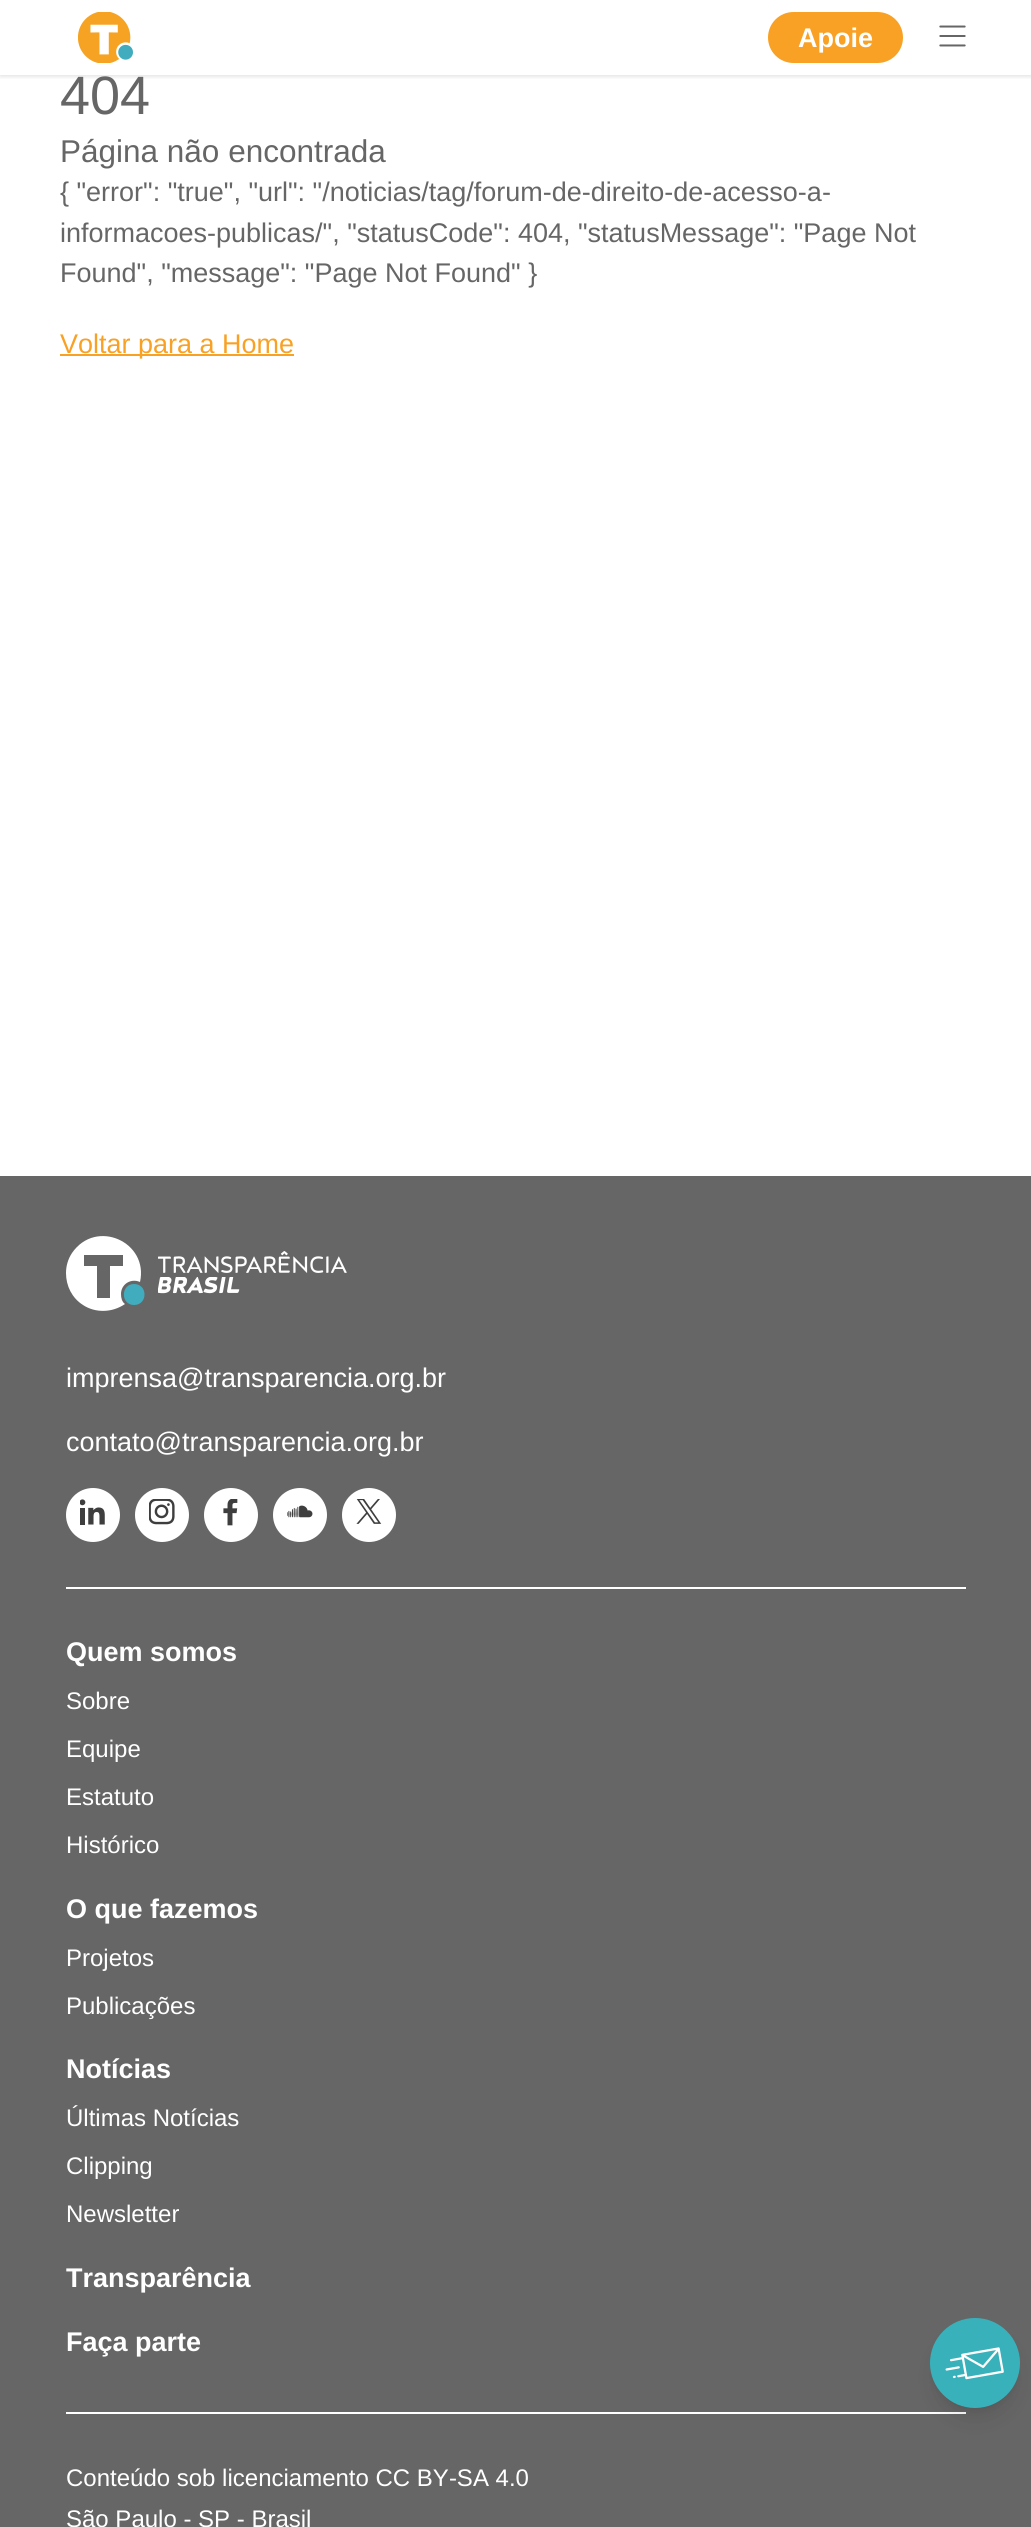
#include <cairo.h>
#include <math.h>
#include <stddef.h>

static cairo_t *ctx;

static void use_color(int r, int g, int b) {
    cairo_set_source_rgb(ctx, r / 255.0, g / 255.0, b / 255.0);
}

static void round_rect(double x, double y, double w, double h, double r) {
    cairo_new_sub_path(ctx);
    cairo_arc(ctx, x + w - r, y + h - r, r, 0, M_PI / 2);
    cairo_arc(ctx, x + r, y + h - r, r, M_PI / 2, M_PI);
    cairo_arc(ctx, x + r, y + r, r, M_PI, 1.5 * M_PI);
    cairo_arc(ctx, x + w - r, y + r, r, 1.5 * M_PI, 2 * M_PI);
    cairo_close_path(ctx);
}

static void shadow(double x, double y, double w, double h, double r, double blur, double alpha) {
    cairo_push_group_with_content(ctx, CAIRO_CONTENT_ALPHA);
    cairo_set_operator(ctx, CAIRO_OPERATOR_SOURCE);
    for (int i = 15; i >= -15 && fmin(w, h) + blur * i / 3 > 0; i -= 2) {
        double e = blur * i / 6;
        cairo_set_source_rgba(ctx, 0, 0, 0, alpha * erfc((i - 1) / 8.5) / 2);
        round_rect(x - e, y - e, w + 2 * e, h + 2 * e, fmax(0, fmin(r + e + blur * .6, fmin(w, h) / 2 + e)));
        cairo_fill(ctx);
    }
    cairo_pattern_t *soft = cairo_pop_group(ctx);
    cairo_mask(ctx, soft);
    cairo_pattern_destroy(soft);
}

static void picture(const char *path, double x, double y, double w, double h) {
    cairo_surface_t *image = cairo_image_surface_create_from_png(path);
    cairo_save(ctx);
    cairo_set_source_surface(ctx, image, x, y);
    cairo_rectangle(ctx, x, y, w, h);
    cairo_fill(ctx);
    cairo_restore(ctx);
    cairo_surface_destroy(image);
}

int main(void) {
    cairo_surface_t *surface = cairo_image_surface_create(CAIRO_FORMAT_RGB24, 1031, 2527);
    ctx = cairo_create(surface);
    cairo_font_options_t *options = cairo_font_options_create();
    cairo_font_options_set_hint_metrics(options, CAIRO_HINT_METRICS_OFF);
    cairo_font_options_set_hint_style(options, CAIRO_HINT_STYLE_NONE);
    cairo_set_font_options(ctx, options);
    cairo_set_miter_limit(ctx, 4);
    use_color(255, 255, 255);
    cairo_paint(ctx);
    cairo_save(ctx);
    cairo_rectangle(ctx, 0, 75, 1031, 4);
    cairo_clip(ctx);
    use_color(0, 0, 0);
    shadow(0, 2, 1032, 75, 0, 2, 0.1);
    cairo_restore(ctx);
    picture("img1.png", 78, 12, 55, 51);
    use_color(249, 161, 36);
    round_rect(768, 12, 135, 51, 25.5);
    cairo_fill(ctx);
    cairo_select_font_face(ctx, "Liberation Sans", CAIRO_FONT_SLANT_NORMAL, CAIRO_FONT_WEIGHT_BOLD);
    cairo_set_font_size(ctx, 27);
    use_color(255, 255, 255);
    cairo_move_to(ctx, 798, 47);
    cairo_show_text(ctx, "Apoie");
    picture("img2.png", 939, 25, 27, 22);
    cairo_select_font_face(ctx, "Liberation Sans", CAIRO_FONT_SLANT_NORMAL, CAIRO_FONT_WEIGHT_NORMAL);
    cairo_set_font_size(ctx, 54);
    use_color(102, 102, 102);
    cairo_move_to(ctx, 60, 114);
    cairo_show_text(ctx, "404");
    cairo_set_font_size(ctx, 31.5);
    cairo_move_to(ctx, 60, 162);
    cairo_show_text(ctx, "Página não encontrada");
    cairo_set_font_size(ctx, 27);
    cairo_move_to(ctx, 60, 201);
    cairo_show_text(ctx, "{ \"error\": \"true\", \"url\": \"/noticias/tag/forum-de-direito-de-acesso-a-");
    cairo_move_to(ctx, 60, 242);
    cairo_show_text(ctx, "informacoes-publicas/\", \"statusCode\": 404, \"statusMessage\": \"Page Not");
    cairo_move_to(ctx, 60, 282);
    cairo_show_text(ctx, "Found\", \"message\": \"Page Not Found\" }");
    use_color(249, 161, 36);
    cairo_rectangle(ctx, 60, 354, 234, 2);
    cairo_fill(ctx);
    cairo_move_to(ctx, 60, 353);
    cairo_show_text(ctx, "Voltar para a Home");
    use_color(102, 102, 102);
    cairo_rectangle(ctx, 0, 1176, 1031, 1351);
    cairo_fill(ctx);
    use_color(255, 255, 255);
    cairo_new_path(ctx);
    cairo_move_to(ctx, 121, 1294);
    cairo_curve_to(ctx, 121, 1284, 131, 1278, 140, 1282);
    cairo_curve_to(ctx, 149, 1242, 96, 1218, 72, 1253);
    cairo_curve_to(ctx, 68, 1259, 66, 1266, 66, 1273);
    cairo_curve_to(ctx, 66, 1286, 72, 1298, 83, 1305);
    cairo_curve_to(ctx, 95, 1313, 112, 1313, 125, 1304);
    cairo_curve_to(ctx, 122, 1302, 121, 1298, 121, 1294);
    cairo_close_path(ctx);
    cairo_move_to(ctx, 110, 1298);
    cairo_line_to(ctx, 97, 1298);
    cairo_line_to(ctx, 97, 1266);
    cairo_line_to(ctx, 84, 1266);
    cairo_line_to(ctx, 84, 1255);
    cairo_line_to(ctx, 123, 1255);
    cairo_line_to(ctx, 123, 1266);
    cairo_line_to(ctx, 110, 1266);
    cairo_close_path(ctx);
    cairo_fill(ctx);
    use_color(65, 172, 189);
    cairo_new_path(ctx);
    cairo_move_to(ctx, 134, 1305);
    cairo_curve_to(ctx, 148, 1305, 148, 1284, 134, 1284);
    cairo_curve_to(ctx, 120.5, 1284, 120.5, 1305, 134, 1305);
    cairo_close_path(ctx);
    cairo_fill(ctx);
    picture("img3.png", 158, 1251, 189, 22);
    picture("img4.png", 158, 1277, 82, 17);
    use_color(255, 255, 255);
    cairo_move_to(ctx, 66, 1387);
    cairo_show_text(ctx, "imprensa@transparencia.org.br");
    cairo_move_to(ctx, 66, 1451);
    cairo_show_text(ctx, "contato@transparencia.org.br");
    cairo_new_path(ctx);
    cairo_arc(ctx, 93, 1515, 27, 0, 2 * M_PI);
    cairo_fill(ctx);
    picture("img5.png", 80, 1499, 25, 26);
    cairo_arc(ctx, 162, 1515, 27, 0, 2 * M_PI);
    cairo_fill(ctx);
    picture("img6.png", 149, 1499, 26, 26);
    cairo_arc(ctx, 231, 1515, 27, 0, 2 * M_PI);
    cairo_fill(ctx);
    picture("img7.png", 223, 1499, 15, 27);
    cairo_arc(ctx, 300, 1515, 27, 0, 2 * M_PI);
    cairo_fill(ctx);
    picture("img8.png", 287, 1505, 26, 13);
    cairo_arc(ctx, 369, 1515, 27, 0, 2 * M_PI);
    cairo_fill(ctx);
    picture("img9.png", 356, 1499, 26, 25);
    cairo_rectangle(ctx, 66, 1587, 900, 2);
    cairo_fill(ctx);
    cairo_select_font_face(ctx, "Liberation Sans", CAIRO_FONT_SLANT_NORMAL, CAIRO_FONT_WEIGHT_BOLD);
    cairo_move_to(ctx, 66, 1661);
    cairo_show_text(ctx, "Quem somos");
    cairo_select_font_face(ctx, "Liberation Sans", CAIRO_FONT_SLANT_NORMAL, CAIRO_FONT_WEIGHT_NORMAL);
    cairo_set_font_size(ctx, 24);
    cairo_move_to(ctx, 66, 1709);
    cairo_show_text(ctx, "Sobre");
    cairo_move_to(ctx, 66, 1757);
    cairo_show_text(ctx, "Equipe");
    cairo_move_to(ctx, 66, 1805);
    cairo_show_text(ctx, "Estatuto");
    cairo_move_to(ctx, 66, 1853);
    cairo_show_text(ctx, "Histórico");
    cairo_select_font_face(ctx, "Liberation Sans", CAIRO_FONT_SLANT_NORMAL, CAIRO_FONT_WEIGHT_BOLD);
    cairo_set_font_size(ctx, 27);
    cairo_move_to(ctx, 66, 1918);
    cairo_show_text(ctx, "O que fazemos");
    cairo_select_font_face(ctx, "Liberation Sans", CAIRO_FONT_SLANT_NORMAL, CAIRO_FONT_WEIGHT_NORMAL);
    cairo_set_font_size(ctx, 24);
    cairo_move_to(ctx, 66, 1966);
    cairo_show_text(ctx, "Projetos");
    cairo_move_to(ctx, 66, 2014);
    cairo_show_text(ctx, "Publicações");
    cairo_select_font_face(ctx, "Liberation Sans", CAIRO_FONT_SLANT_NORMAL, CAIRO_FONT_WEIGHT_BOLD);
    cairo_set_font_size(ctx, 27);
    cairo_move_to(ctx, 66, 2078);
    cairo_show_text(ctx, "Notícias");
    cairo_select_font_face(ctx, "Liberation Sans", CAIRO_FONT_SLANT_NORMAL, CAIRO_FONT_WEIGHT_NORMAL);
    cairo_set_font_size(ctx, 24);
    cairo_move_to(ctx, 66, 2126);
    cairo_show_text(ctx, "Últimas Notícias");
    cairo_move_to(ctx, 66, 2174);
    cairo_show_text(ctx, "Clipping");
    cairo_move_to(ctx, 66, 2222);
    cairo_show_text(ctx, "Newsletter");
    cairo_select_font_face(ctx, "Liberation Sans", CAIRO_FONT_SLANT_NORMAL, CAIRO_FONT_WEIGHT_BOLD);
    cairo_set_font_size(ctx, 27);
    cairo_move_to(ctx, 66, 2287);
    cairo_show_text(ctx, "Transparência");
    cairo_move_to(ctx, 66, 2351);
    cairo_show_text(ctx, "Faça parte");
    cairo_rectangle(ctx, 66, 2412, 900, 2);
    cairo_fill(ctx);
    cairo_select_font_face(ctx, "Liberation Sans", CAIRO_FONT_SLANT_NORMAL, CAIRO_FONT_WEIGHT_NORMAL);
    cairo_set_font_size(ctx, 24);
    cairo_move_to(ctx, 66, 2486);
    cairo_show_text(ctx, "Conteúdo sob licenciamento CC BY-SA 4.0");
    cairo_move_to(ctx, 66, 2527);
    cairo_show_text(ctx, "São Paulo - SP - Brasil");
    use_color(0, 0, 0);
    shadow(936, 2330, 78, 78, 39, 4.5, 0.1);
    shadow(935, 2337, 81, 81, 40.5, 11, 0.1);
    use_color(57, 177, 187);
    cairo_arc(ctx, 975, 2363, 45, 0, 2 * M_PI);
    cairo_fill(ctx);
    picture("img10.png", 945, 2347, 59, 33);
    cairo_surface_write_to_png(surface, "result.png");
    cairo_font_options_destroy(options);
    cairo_destroy(ctx);
    cairo_surface_destroy(surface);
    return 0;
}
